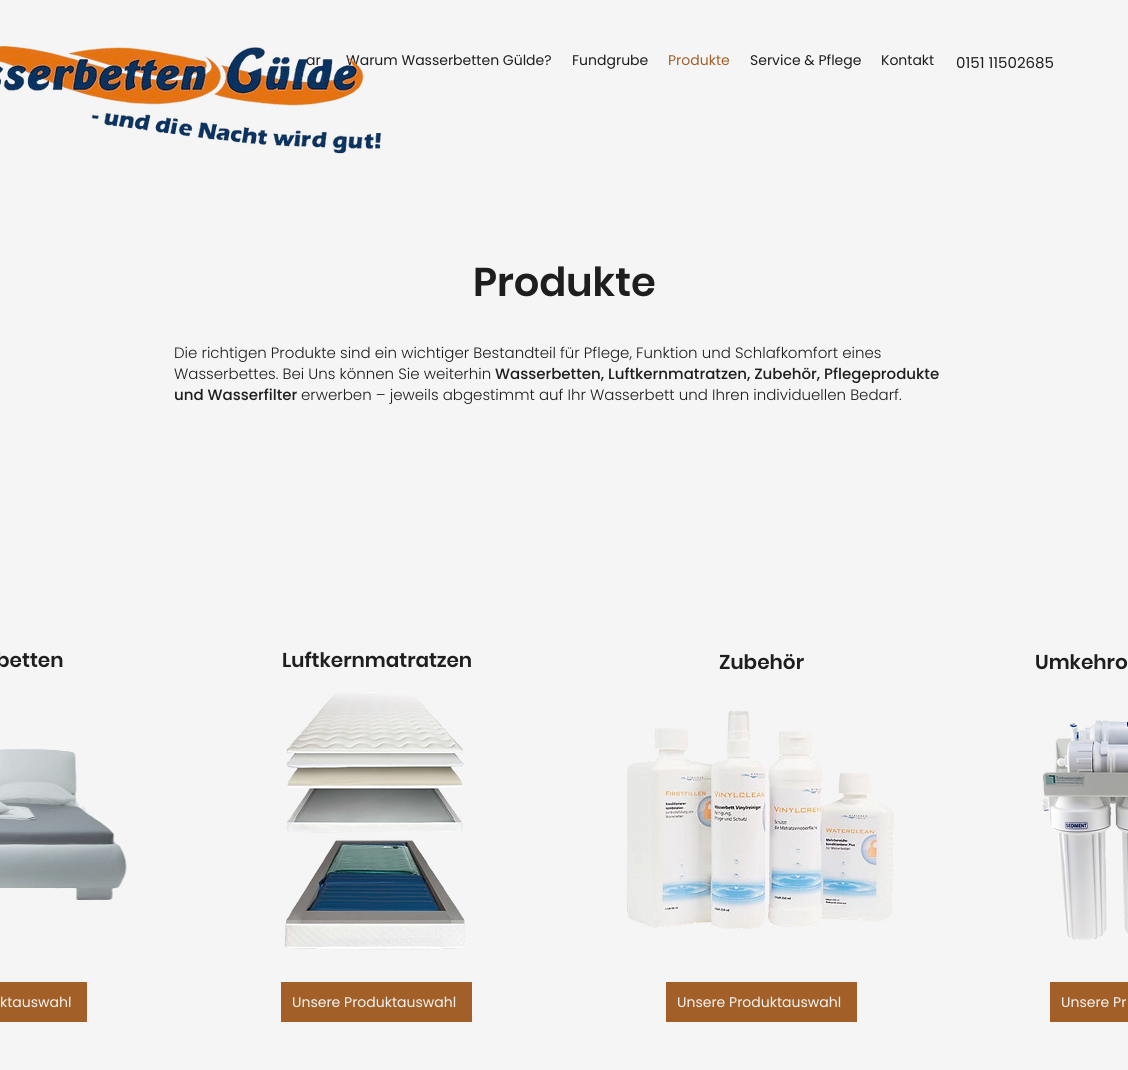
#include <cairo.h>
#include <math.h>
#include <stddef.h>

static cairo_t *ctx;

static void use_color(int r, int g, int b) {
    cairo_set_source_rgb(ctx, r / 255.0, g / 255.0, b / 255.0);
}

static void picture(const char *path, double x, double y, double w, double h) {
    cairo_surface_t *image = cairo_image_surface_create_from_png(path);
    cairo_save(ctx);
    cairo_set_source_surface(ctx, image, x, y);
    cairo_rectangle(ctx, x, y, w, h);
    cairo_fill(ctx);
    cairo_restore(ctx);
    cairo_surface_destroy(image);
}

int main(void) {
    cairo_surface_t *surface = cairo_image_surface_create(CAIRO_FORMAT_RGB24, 1128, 1070);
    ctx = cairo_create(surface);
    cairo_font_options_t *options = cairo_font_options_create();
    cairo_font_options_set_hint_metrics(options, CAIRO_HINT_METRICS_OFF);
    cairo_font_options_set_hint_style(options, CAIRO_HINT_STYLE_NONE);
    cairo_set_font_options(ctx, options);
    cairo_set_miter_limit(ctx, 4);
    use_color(245, 245, 245);
    cairo_paint(ctx);
    cairo_select_font_face(ctx, "Poppins", CAIRO_FONT_SLANT_NORMAL, CAIRO_FONT_WEIGHT_NORMAL);
    cairo_set_font_size(ctx, 14);
    use_color(30, 30, 30);
    cairo_move_to(ctx, 306, 65);
    cairo_show_text(ctx, "ar");
    cairo_move_to(ctx, 346, 65);
    cairo_show_text(ctx, "Warum Wasserbetten Gülde?");
    picture("img1.png", 0, 46, 383, 108);
    cairo_move_to(ctx, 572, 65);
    cairo_show_text(ctx, "Fundgrube");
    use_color(162, 96, 40);
    cairo_move_to(ctx, 668, 65);
    cairo_show_text(ctx, "Produkte");
    use_color(30, 30, 30);
    cairo_move_to(ctx, 750, 65);
    cairo_show_text(ctx, "Service & Pflege");
    cairo_move_to(ctx, 881, 65);
    cairo_show_text(ctx, "Kontakt");
    cairo_set_font_size(ctx, 15);
    cairo_move_to(ctx, 956, 68);
    cairo_show_text(ctx, "0151 11502685");
    cairo_select_font_face(ctx, "Poppins SemiBold", CAIRO_FONT_SLANT_NORMAL, CAIRO_FONT_WEIGHT_NORMAL);
    cairo_set_font_size(ctx, 40);
    cairo_move_to(ctx, 473, 296);
    cairo_show_text(ctx, "Produkte");
    cairo_select_font_face(ctx, "Poppins Light", CAIRO_FONT_SLANT_NORMAL, CAIRO_FONT_WEIGHT_NORMAL);
    cairo_set_font_size(ctx, 15);
    cairo_move_to(ctx, 174, 358);
    cairo_show_text(ctx, "Die richtigen Produkte sind ein wichtiger Bestandteil für Pflege, Funktion und Schlafkomfort eines");
    cairo_move_to(ctx, 174, 379);
    cairo_show_text(ctx, "Wasserbettes. Bei Uns können Sie weiterhin");
    cairo_select_font_face(ctx, "Poppins Medium", CAIRO_FONT_SLANT_NORMAL, CAIRO_FONT_WEIGHT_NORMAL);
    cairo_move_to(ctx, 495, 379);
    cairo_show_text(ctx, "Wasserbetten, Luftkernmatratzen, Zubehör, Pflegeprodukte");
    cairo_move_to(ctx, 174, 400);
    cairo_show_text(ctx, "und Wasserfilter");
    cairo_select_font_face(ctx, "Poppins Light", CAIRO_FONT_SLANT_NORMAL, CAIRO_FONT_WEIGHT_NORMAL);
    cairo_move_to(ctx, 301, 400);
    cairo_show_text(ctx, "erwerben – jeweils abgestimmt auf Ihr Wasserbett und Ihren individuellen Bedarf.");
    cairo_select_font_face(ctx, "Poppins SemiBold", CAIRO_FONT_SLANT_NORMAL, CAIRO_FONT_WEIGHT_NORMAL);
    cairo_set_font_size(ctx, 20);
    cairo_move_to(ctx, -4, 667);
    cairo_show_text(ctx, "betten");
    picture("img2.png", 0, 749, 127, 151);
    use_color(162, 96, 40);
    cairo_rectangle(ctx, 0, 982, 87, 40);
    cairo_fill(ctx);
    cairo_select_font_face(ctx, "Poppins", CAIRO_FONT_SLANT_NORMAL, CAIRO_FONT_WEIGHT_NORMAL);
    cairo_set_font_size(ctx, 14);
    use_color(245, 245, 245);
    cairo_move_to(ctx, 0, 1007);
    cairo_show_text(ctx, "ktauswahl");
    cairo_select_font_face(ctx, "Poppins SemiBold", CAIRO_FONT_SLANT_NORMAL, CAIRO_FONT_WEIGHT_NORMAL);
    cairo_set_font_size(ctx, 20);
    use_color(30, 30, 30);
    cairo_move_to(ctx, 282, 667);
    cairo_show_text(ctx, "Luftkernmatratzen");
    picture("img3.png", 284, 692, 181, 258);
    use_color(162, 96, 40);
    cairo_rectangle(ctx, 281, 982, 191, 40);
    cairo_fill(ctx);
    cairo_select_font_face(ctx, "Poppins", CAIRO_FONT_SLANT_NORMAL, CAIRO_FONT_WEIGHT_NORMAL);
    cairo_set_font_size(ctx, 14);
    use_color(245, 245, 245);
    cairo_move_to(ctx, 292, 1007);
    cairo_show_text(ctx, "Unsere Produktauswahl");
    cairo_select_font_face(ctx, "Poppins SemiBold", CAIRO_FONT_SLANT_NORMAL, CAIRO_FONT_WEIGHT_NORMAL);
    cairo_set_font_size(ctx, 20);
    use_color(30, 30, 30);
    cairo_move_to(ctx, 719, 669);
    cairo_show_text(ctx, "Zubehör");
    picture("img4.png", 627, 710, 267, 219);
    use_color(162, 96, 40);
    cairo_rectangle(ctx, 666, 982, 191, 40);
    cairo_fill(ctx);
    cairo_select_font_face(ctx, "Poppins", CAIRO_FONT_SLANT_NORMAL, CAIRO_FONT_WEIGHT_NORMAL);
    cairo_set_font_size(ctx, 14);
    use_color(245, 245, 245);
    cairo_move_to(ctx, 677, 1007);
    cairo_show_text(ctx, "Unsere Produktauswahl");
    cairo_select_font_face(ctx, "Poppins SemiBold", CAIRO_FONT_SLANT_NORMAL, CAIRO_FONT_WEIGHT_NORMAL);
    cairo_set_font_size(ctx, 20);
    use_color(30, 30, 30);
    cairo_move_to(ctx, 1035, 669);
    cairo_show_text(ctx, "Umkehro");
    picture("img5.png", 1042, 720, 86, 220);
    use_color(162, 96, 40);
    cairo_rectangle(ctx, 1050, 982, 78, 40);
    cairo_fill(ctx);
    cairo_select_font_face(ctx, "Poppins", CAIRO_FONT_SLANT_NORMAL, CAIRO_FONT_WEIGHT_NORMAL);
    cairo_set_font_size(ctx, 14);
    use_color(245, 245, 245);
    cairo_move_to(ctx, 1061, 1007);
    cairo_show_text(ctx, "Unsere Pr");
    cairo_surface_write_to_png(surface, "result.png");
    cairo_font_options_destroy(options);
    cairo_destroy(ctx);
    cairo_surface_destroy(surface);
    return 0;
}
